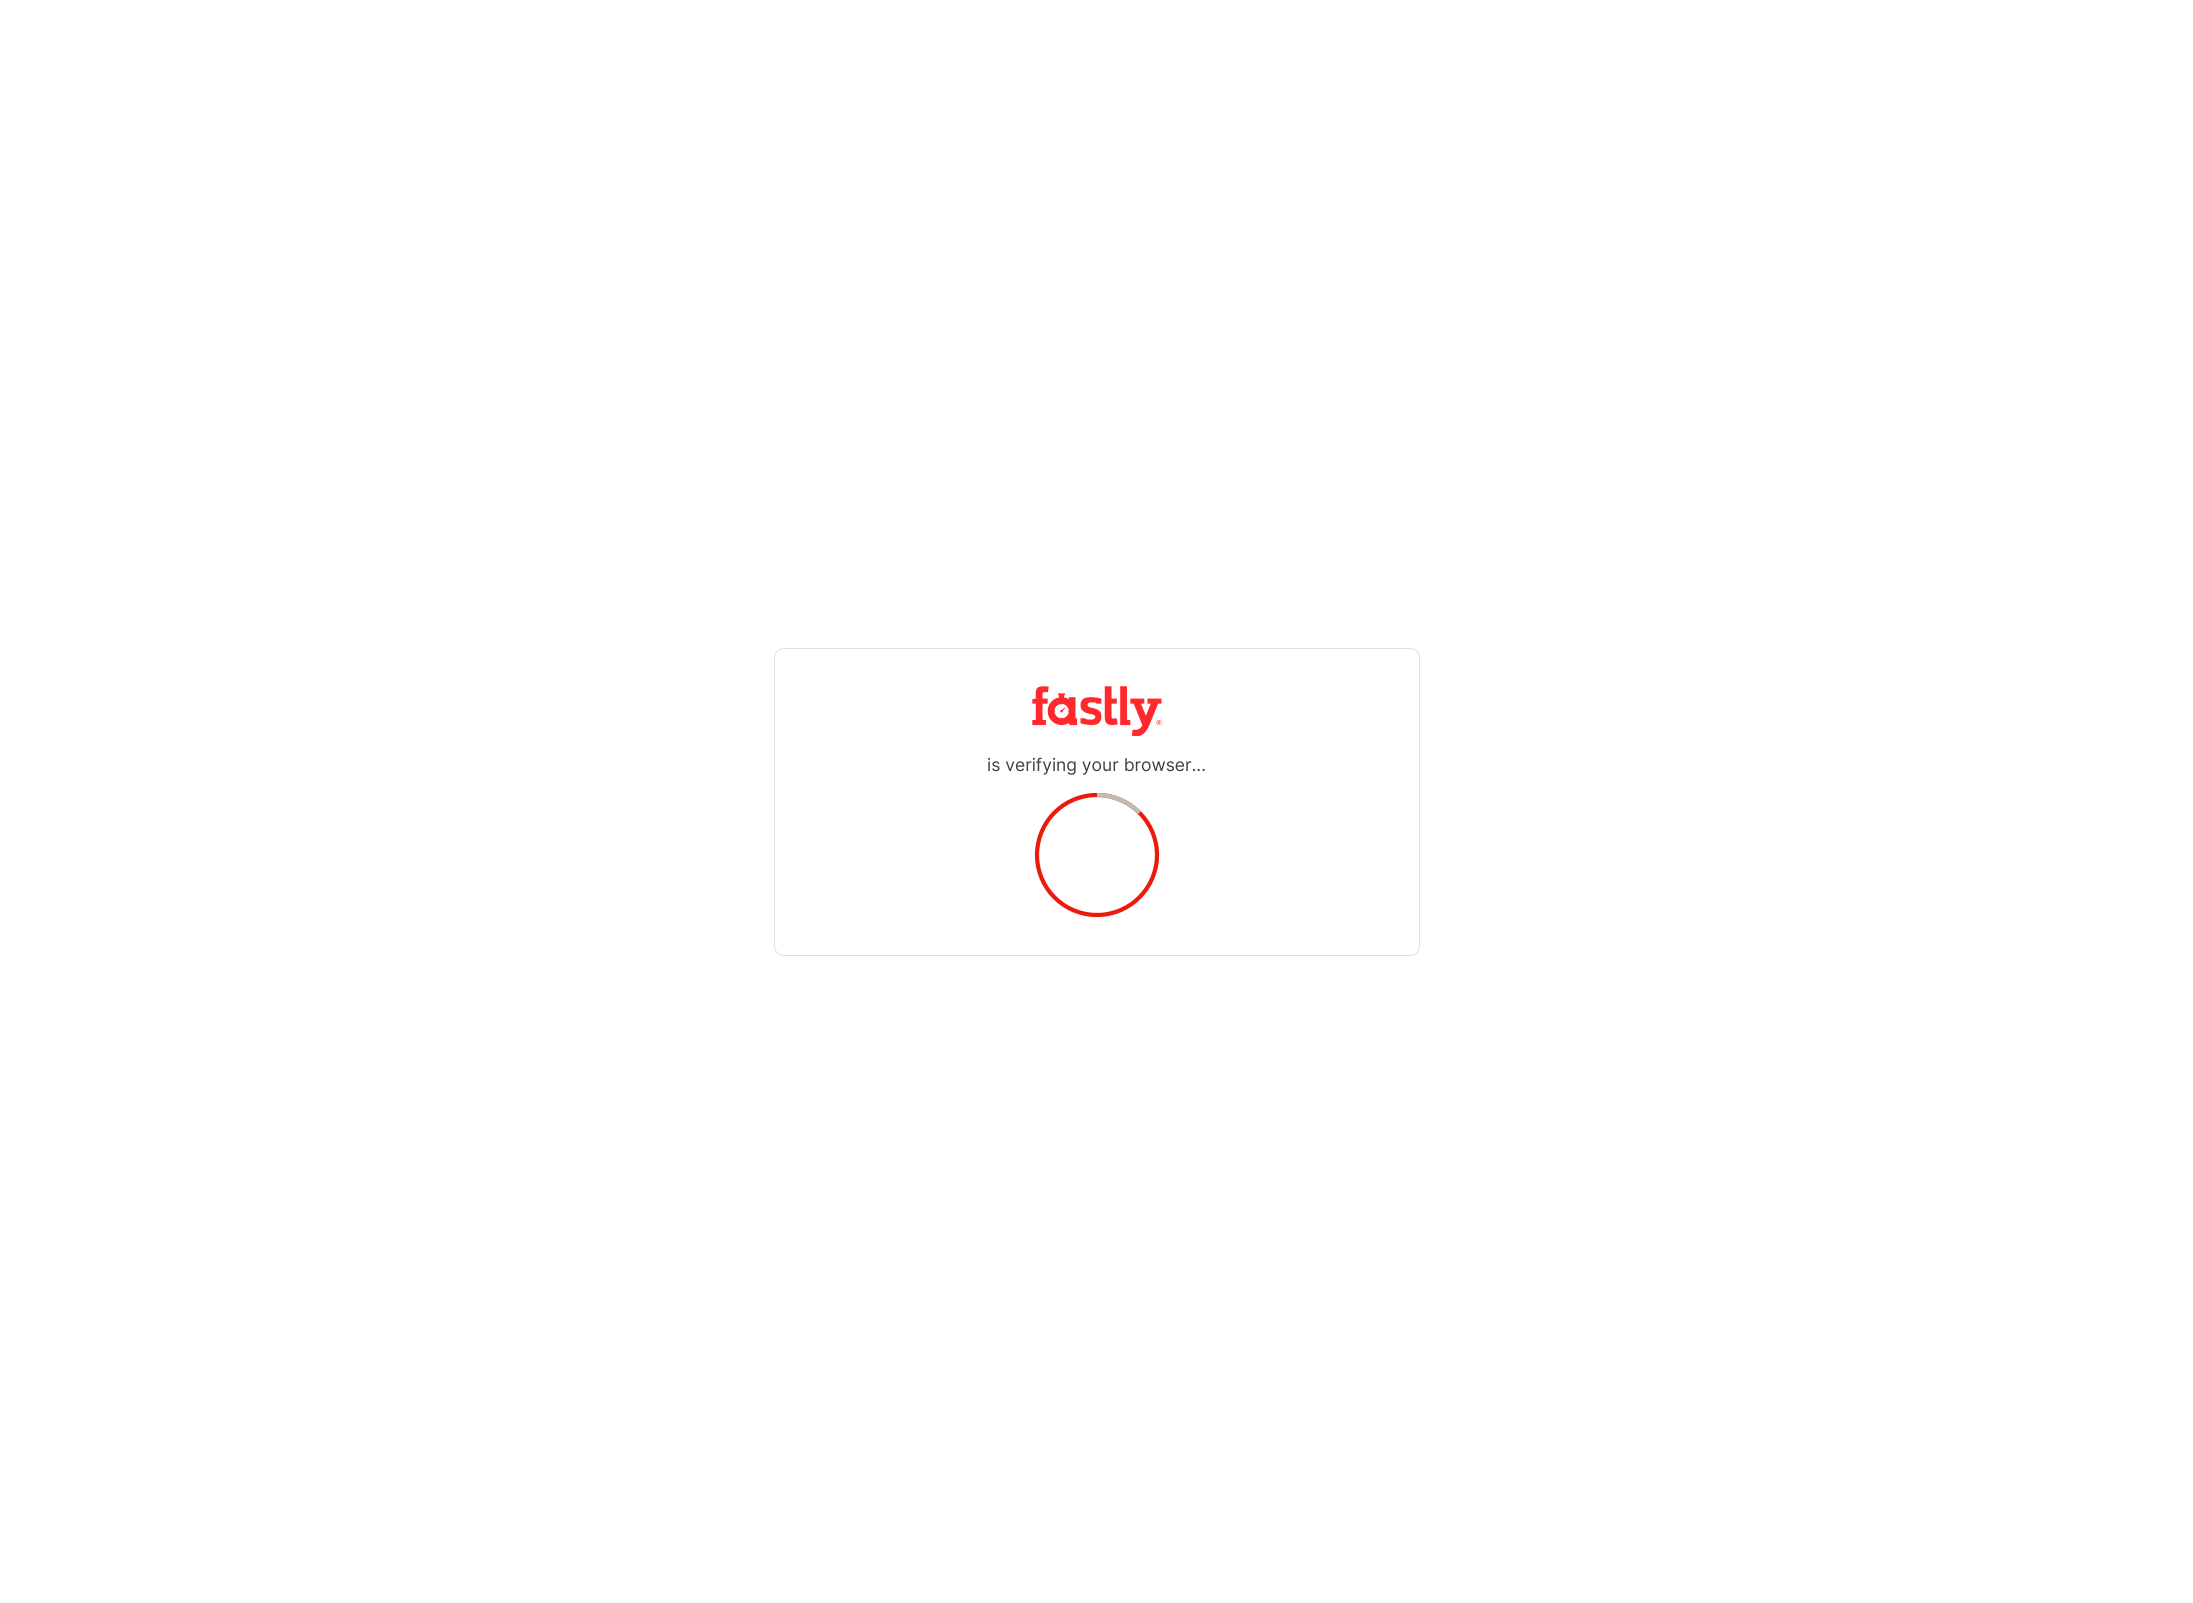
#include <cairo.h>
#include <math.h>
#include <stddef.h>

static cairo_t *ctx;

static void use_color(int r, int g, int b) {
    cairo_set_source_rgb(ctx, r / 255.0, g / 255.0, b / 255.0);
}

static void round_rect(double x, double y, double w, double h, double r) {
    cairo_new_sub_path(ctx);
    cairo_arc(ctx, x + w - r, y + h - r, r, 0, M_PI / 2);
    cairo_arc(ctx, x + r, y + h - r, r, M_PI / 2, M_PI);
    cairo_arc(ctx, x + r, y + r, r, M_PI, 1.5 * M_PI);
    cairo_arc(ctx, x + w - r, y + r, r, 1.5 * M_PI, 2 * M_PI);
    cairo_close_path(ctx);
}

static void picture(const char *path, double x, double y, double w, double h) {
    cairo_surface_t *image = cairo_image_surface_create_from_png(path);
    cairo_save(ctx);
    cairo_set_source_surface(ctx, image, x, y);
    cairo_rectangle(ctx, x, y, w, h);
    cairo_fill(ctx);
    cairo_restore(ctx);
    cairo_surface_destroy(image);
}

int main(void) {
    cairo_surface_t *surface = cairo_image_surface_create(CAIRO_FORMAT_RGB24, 2193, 1603);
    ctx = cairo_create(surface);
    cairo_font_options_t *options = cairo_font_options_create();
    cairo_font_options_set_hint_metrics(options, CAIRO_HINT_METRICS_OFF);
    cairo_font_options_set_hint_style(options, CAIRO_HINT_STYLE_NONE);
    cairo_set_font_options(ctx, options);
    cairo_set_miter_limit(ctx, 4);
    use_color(255, 255, 255);
    cairo_paint(ctx);
    round_rect(774.5, 648.5, 645, 307, 9.5);
    use_color(220, 224, 228);
    cairo_set_line_width(ctx, 1);
    cairo_stroke(ctx);
    picture("img1.png", 1032, 686, 130, 50);
    cairo_select_font_face(ctx, "Inter", CAIRO_FONT_SLANT_NORMAL, CAIRO_FONT_WEIGHT_NORMAL);
    cairo_set_font_size(ctx, 17.5);
    use_color(58, 66, 74);
    cairo_move_to(ctx, 987, 771);
    cairo_show_text(ctx, "is verifying your browser...");
    cairo_save(ctx);
    cairo_rectangle(ctx, 813, 793, 568, 125);
    cairo_clip(ctx);
    cairo_new_path(ctx);
    cairo_move_to(ctx, 1037, 855);
    cairo_curve_to(ctx, 1037, 822, 1063.5, 795, 1097, 795);
    cairo_curve_to(ctx, 1130, 795, 1157, 822, 1157, 855);
    cairo_curve_to(ctx, 1157, 888, 1130, 915, 1097, 915);
    cairo_curve_to(ctx, 1063.5, 915, 1037, 888, 1037, 855);
    cairo_close_path(ctx);
    use_color(235, 26, 12);
    cairo_set_line_width(ctx, 4.2);
    cairo_stroke(ctx);
    cairo_restore(ctx);
    cairo_new_path(ctx);
    cairo_move_to(ctx, 1139.5, 812.5);
    cairo_curve_to(ctx, 1128, 801.5, 1113, 795, 1097, 795);
    use_color(194, 186, 181);
    cairo_set_line_width(ctx, 4.2);
    cairo_stroke(ctx);
    cairo_surface_write_to_png(surface, "result.png");
    cairo_font_options_destroy(options);
    cairo_destroy(ctx);
    cairo_surface_destroy(surface);
    return 0;
}
